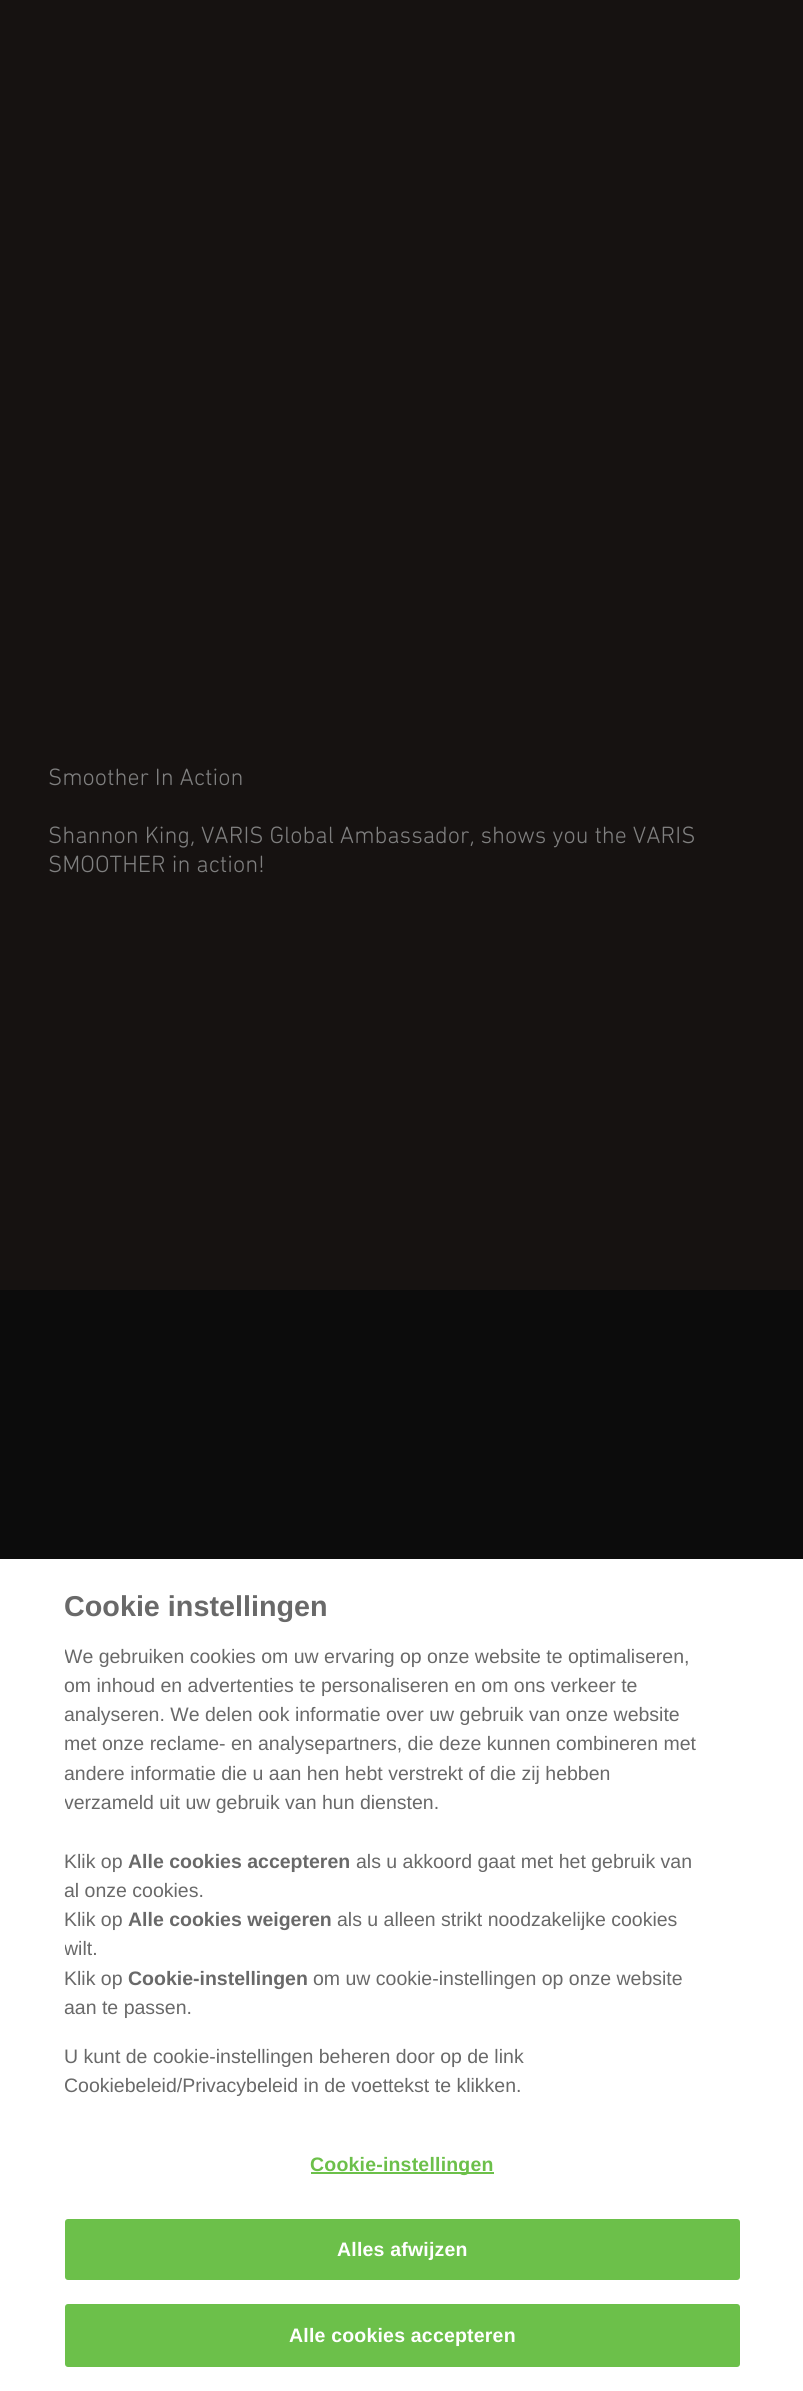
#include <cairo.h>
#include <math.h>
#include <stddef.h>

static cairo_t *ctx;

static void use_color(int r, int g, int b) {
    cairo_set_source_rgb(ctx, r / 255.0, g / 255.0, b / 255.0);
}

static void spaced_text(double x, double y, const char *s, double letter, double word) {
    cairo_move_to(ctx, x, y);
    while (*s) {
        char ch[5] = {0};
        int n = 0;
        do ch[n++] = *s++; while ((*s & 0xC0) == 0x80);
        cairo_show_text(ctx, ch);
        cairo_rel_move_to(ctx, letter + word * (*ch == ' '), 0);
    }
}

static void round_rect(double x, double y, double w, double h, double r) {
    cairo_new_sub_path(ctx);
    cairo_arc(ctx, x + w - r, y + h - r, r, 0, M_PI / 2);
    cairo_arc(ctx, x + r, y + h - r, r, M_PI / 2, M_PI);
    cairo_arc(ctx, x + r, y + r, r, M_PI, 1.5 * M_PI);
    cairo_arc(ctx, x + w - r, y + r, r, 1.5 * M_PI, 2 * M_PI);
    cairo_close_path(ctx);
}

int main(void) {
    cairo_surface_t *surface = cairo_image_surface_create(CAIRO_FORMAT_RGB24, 803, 2391);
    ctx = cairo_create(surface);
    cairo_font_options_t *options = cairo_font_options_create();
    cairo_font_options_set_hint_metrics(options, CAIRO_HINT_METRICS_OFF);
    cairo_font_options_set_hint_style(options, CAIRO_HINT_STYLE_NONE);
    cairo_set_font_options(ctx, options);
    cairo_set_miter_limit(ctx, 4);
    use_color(12, 12, 12);
    cairo_paint(ctx);
    use_color(22, 18, 17);
    cairo_rectangle(ctx, 0, 0, 803, 1290);
    cairo_fill(ctx);
    cairo_select_font_face(ctx, "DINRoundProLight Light", CAIRO_FONT_SLANT_NORMAL, CAIRO_FONT_WEIGHT_NORMAL);
    cairo_set_font_size(ctx, 24);
    use_color(128, 128, 128);
    cairo_move_to(ctx, 48, 785);
    cairo_show_text(ctx, "Smoother In Action");
    cairo_move_to(ctx, 48, 843);
    cairo_show_text(ctx, "Shannon King, VARIS Global Ambassador, shows you the VARIS");
    cairo_move_to(ctx, 48, 872);
    cairo_show_text(ctx, "SMOOTHER in action!");
    use_color(255, 255, 255);
    cairo_rectangle(ctx, 0, 1559, 803, 832);
    cairo_fill(ctx);
    cairo_select_font_face(ctx, "Liberation Sans", CAIRO_FONT_SLANT_NORMAL, CAIRO_FONT_WEIGHT_BOLD);
    cairo_set_font_size(ctx, 28.75);
    use_color(105, 105, 105);
    cairo_move_to(ctx, 64, 1616);
    cairo_show_text(ctx, "Cookie instellingen");
    cairo_save(ctx);
    cairo_rectangle(ctx, 65, 1589, 639, 531);
    cairo_clip(ctx);
    cairo_select_font_face(ctx, "Liberation Sans", CAIRO_FONT_SLANT_NORMAL, CAIRO_FONT_WEIGHT_NORMAL);
    cairo_set_font_size(ctx, 19.5);
    cairo_move_to(ctx, 64, 1663);
    cairo_show_text(ctx, "We gebruiken cookies om uw ervaring op onze website te optimaliseren,");
    cairo_restore(ctx);
    cairo_select_font_face(ctx, "Liberation Sans", CAIRO_FONT_SLANT_NORMAL, CAIRO_FONT_WEIGHT_NORMAL);
    cairo_set_font_size(ctx, 19.5);
    cairo_move_to(ctx, 64, 1692);
    cairo_show_text(ctx, "om inhoud en advertenties te personaliseren en om ons verkeer te");
    cairo_move_to(ctx, 64, 1721);
    cairo_show_text(ctx, "analyseren. We delen ook informatie over uw gebruik van onze website");
    cairo_move_to(ctx, 64, 1750);
    cairo_show_text(ctx, "met onze reclame- en analysepartners, die deze kunnen combineren met");
    cairo_move_to(ctx, 64, 1780);
    cairo_show_text(ctx, "andere informatie die u aan hen hebt verstrekt of die zij hebben");
    cairo_save(ctx);
    cairo_rectangle(ctx, 65, 1589, 639, 531);
    cairo_clip(ctx);
    cairo_move_to(ctx, 64, 1809);
    cairo_show_text(ctx, "verzameld uit uw gebruik van hun diensten.");
    cairo_restore(ctx);
    cairo_move_to(ctx, 64, 1868);
    cairo_show_text(ctx, "Klik op");
    cairo_select_font_face(ctx, "Liberation Sans", CAIRO_FONT_SLANT_NORMAL, CAIRO_FONT_WEIGHT_BOLD);
    cairo_move_to(ctx, 128, 1868);
    cairo_show_text(ctx, "Alle cookies accepteren");
    cairo_select_font_face(ctx, "Liberation Sans", CAIRO_FONT_SLANT_NORMAL, CAIRO_FONT_WEIGHT_NORMAL);
    cairo_move_to(ctx, 356, 1868);
    cairo_show_text(ctx, "als u akkoord gaat met het gebruik van");
    cairo_move_to(ctx, 64, 1897);
    cairo_show_text(ctx, "al onze cookies.");
    cairo_move_to(ctx, 64, 1926);
    cairo_show_text(ctx, "Klik op");
    cairo_select_font_face(ctx, "Liberation Sans", CAIRO_FONT_SLANT_NORMAL, CAIRO_FONT_WEIGHT_BOLD);
    cairo_move_to(ctx, 128, 1926);
    cairo_show_text(ctx, "Alle cookies weigeren");
    cairo_select_font_face(ctx, "Liberation Sans", CAIRO_FONT_SLANT_NORMAL, CAIRO_FONT_WEIGHT_NORMAL);
    cairo_move_to(ctx, 337, 1926);
    cairo_show_text(ctx, "als u alleen strikt noodzakelijke cookies");
    cairo_save(ctx);
    cairo_rectangle(ctx, 65, 1589, 639, 531);
    cairo_clip(ctx);
    cairo_move_to(ctx, 64, 1955);
    cairo_show_text(ctx, "wilt.");
    cairo_restore(ctx);
    cairo_move_to(ctx, 64, 1985);
    cairo_show_text(ctx, "Klik op");
    cairo_select_font_face(ctx, "Liberation Sans", CAIRO_FONT_SLANT_NORMAL, CAIRO_FONT_WEIGHT_BOLD);
    cairo_move_to(ctx, 128, 1985);
    cairo_show_text(ctx, "Cookie-instellingen");
    cairo_select_font_face(ctx, "Liberation Sans", CAIRO_FONT_SLANT_NORMAL, CAIRO_FONT_WEIGHT_NORMAL);
    cairo_move_to(ctx, 313, 1985);
    cairo_show_text(ctx, "om uw cookie-instellingen op onze website");
    cairo_move_to(ctx, 64, 2014);
    cairo_show_text(ctx, "aan te passen.");
    cairo_move_to(ctx, 64, 2063);
    cairo_show_text(ctx, "U kunt de cookie-instellingen beheren door op de link");
    cairo_move_to(ctx, 64, 2092);
    cairo_show_text(ctx, "Cookiebeleid/Privacybeleid in de voettekst te klikken.");
    use_color(108, 192, 74);
    cairo_rectangle(ctx, 311, 2172, 183, 2);
    cairo_fill(ctx);
    cairo_select_font_face(ctx, "Liberation Sans", CAIRO_FONT_SLANT_NORMAL, CAIRO_FONT_WEIGHT_BOLD);
    spaced_text(310, 2171, "Cookie-instellingen", 0.2, 0);
    round_rect(66, 2220, 673, 59, 2);
    cairo_fill_preserve(ctx);
    cairo_stroke(ctx);
    use_color(255, 255, 255);
    spaced_text(337, 2256, "Alles afwijzen", 0.2, 0);
    use_color(108, 192, 74);
    round_rect(66, 2305, 673, 61, 2);
    cairo_fill_preserve(ctx);
    cairo_stroke(ctx);
    use_color(255, 255, 255);
    spaced_text(289, 2342, "Alle cookies accepteren", 0.2, 0);
    cairo_surface_write_to_png(surface, "result.png");
    cairo_font_options_destroy(options);
    cairo_destroy(ctx);
    cairo_surface_destroy(surface);
    return 0;
}
